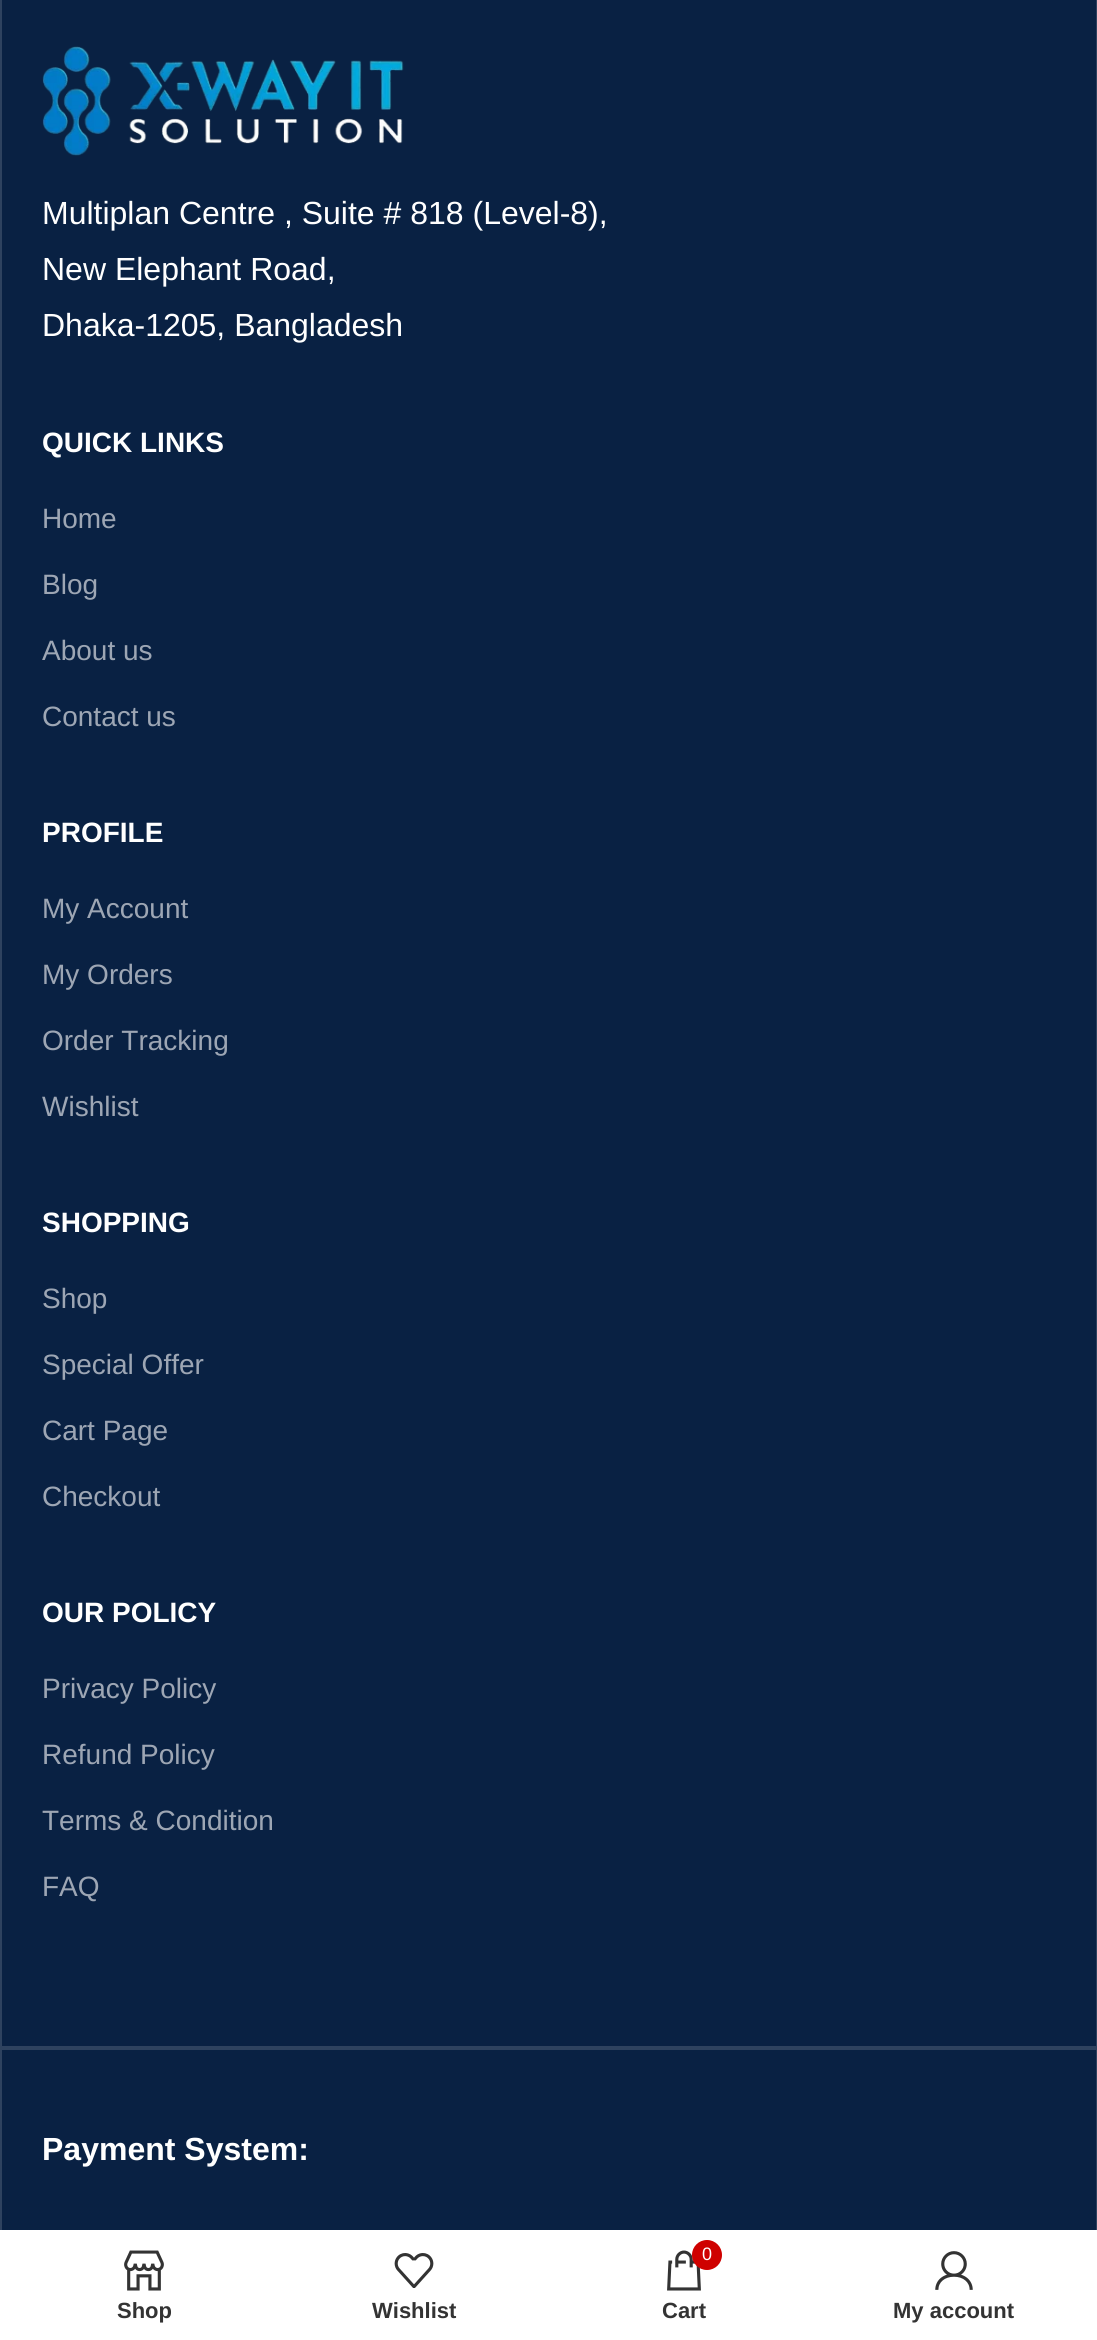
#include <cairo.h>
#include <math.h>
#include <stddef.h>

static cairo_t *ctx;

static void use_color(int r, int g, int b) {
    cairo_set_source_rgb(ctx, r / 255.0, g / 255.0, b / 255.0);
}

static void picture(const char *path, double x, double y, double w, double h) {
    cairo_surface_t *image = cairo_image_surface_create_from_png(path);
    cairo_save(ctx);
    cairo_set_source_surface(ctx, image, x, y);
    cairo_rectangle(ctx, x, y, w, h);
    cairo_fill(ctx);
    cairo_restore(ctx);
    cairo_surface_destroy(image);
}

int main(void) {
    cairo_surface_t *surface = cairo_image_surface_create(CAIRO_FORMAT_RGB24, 1097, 2340);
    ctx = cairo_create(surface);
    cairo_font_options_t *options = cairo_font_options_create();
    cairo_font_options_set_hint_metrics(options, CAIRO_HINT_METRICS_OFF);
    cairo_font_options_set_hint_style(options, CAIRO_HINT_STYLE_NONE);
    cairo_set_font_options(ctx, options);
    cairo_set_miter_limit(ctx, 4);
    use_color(9, 33, 67);
    cairo_paint(ctx);
    cairo_rectangle(ctx, 1, -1, 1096, 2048);
    use_color(46, 66, 95);
    cairo_stroke(ctx);
    picture("img1.png", 42, 46, 362, 110);
    cairo_select_font_face(ctx, "Liberation Sans", CAIRO_FONT_SLANT_NORMAL, CAIRO_FONT_WEIGHT_NORMAL);
    cairo_set_font_size(ctx, 32);
    use_color(255, 255, 255);
    cairo_move_to(ctx, 42, 224);
    cairo_show_text(ctx, "Multiplan Centre , Suite # 818 (Level-8),");
    cairo_move_to(ctx, 42, 280);
    cairo_show_text(ctx, "New Elephant Road,");
    cairo_move_to(ctx, 42, 336);
    cairo_show_text(ctx, "Dhaka-1205, Bangladesh");
    cairo_select_font_face(ctx, "Liberation Sans", CAIRO_FONT_SLANT_NORMAL, CAIRO_FONT_WEIGHT_BOLD);
    cairo_set_font_size(ctx, 28);
    cairo_move_to(ctx, 42, 452);
    cairo_show_text(ctx, "QUICK LINKS");
    cairo_select_font_face(ctx, "Liberation Sans", CAIRO_FONT_SLANT_NORMAL, CAIRO_FONT_WEIGHT_NORMAL);
    use_color(157, 166, 180);
    cairo_move_to(ctx, 42, 528);
    cairo_show_text(ctx, "Home");
    cairo_move_to(ctx, 42, 594);
    cairo_show_text(ctx, "Blog");
    cairo_move_to(ctx, 42, 660);
    cairo_show_text(ctx, "About us");
    cairo_move_to(ctx, 42, 726);
    cairo_show_text(ctx, "Contact us");
    cairo_select_font_face(ctx, "Liberation Sans", CAIRO_FONT_SLANT_NORMAL, CAIRO_FONT_WEIGHT_BOLD);
    use_color(255, 255, 255);
    cairo_move_to(ctx, 42, 842);
    cairo_show_text(ctx, "PROFILE");
    cairo_select_font_face(ctx, "Liberation Sans", CAIRO_FONT_SLANT_NORMAL, CAIRO_FONT_WEIGHT_NORMAL);
    use_color(157, 166, 180);
    cairo_move_to(ctx, 42, 918);
    cairo_show_text(ctx, "My Account");
    cairo_move_to(ctx, 42, 984);
    cairo_show_text(ctx, "My Orders");
    cairo_move_to(ctx, 42, 1050);
    cairo_show_text(ctx, "Order Tracking");
    cairo_move_to(ctx, 42, 1116);
    cairo_show_text(ctx, "Wishlist");
    cairo_select_font_face(ctx, "Liberation Sans", CAIRO_FONT_SLANT_NORMAL, CAIRO_FONT_WEIGHT_BOLD);
    use_color(255, 255, 255);
    cairo_move_to(ctx, 42, 1232);
    cairo_show_text(ctx, "SHOPPING");
    cairo_select_font_face(ctx, "Liberation Sans", CAIRO_FONT_SLANT_NORMAL, CAIRO_FONT_WEIGHT_NORMAL);
    use_color(157, 166, 180);
    cairo_move_to(ctx, 42, 1308);
    cairo_show_text(ctx, "Shop");
    cairo_move_to(ctx, 42, 1374);
    cairo_show_text(ctx, "Special Offer");
    cairo_move_to(ctx, 42, 1440);
    cairo_show_text(ctx, "Cart Page");
    cairo_move_to(ctx, 42, 1506);
    cairo_show_text(ctx, "Checkout");
    cairo_select_font_face(ctx, "Liberation Sans", CAIRO_FONT_SLANT_NORMAL, CAIRO_FONT_WEIGHT_BOLD);
    use_color(255, 255, 255);
    cairo_move_to(ctx, 42, 1622);
    cairo_show_text(ctx, "OUR POLICY");
    cairo_select_font_face(ctx, "Liberation Sans", CAIRO_FONT_SLANT_NORMAL, CAIRO_FONT_WEIGHT_NORMAL);
    use_color(157, 166, 180);
    cairo_move_to(ctx, 42, 1698);
    cairo_show_text(ctx, "Privacy Policy");
    cairo_move_to(ctx, 42, 1764);
    cairo_show_text(ctx, "Refund Policy");
    cairo_move_to(ctx, 42, 1830);
    cairo_show_text(ctx, "Terms & Condition");
    cairo_move_to(ctx, 42, 1896);
    cairo_show_text(ctx, "FAQ");
    cairo_rectangle(ctx, 1, 2049, 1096, 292);
    use_color(46, 66, 95);
    cairo_stroke(ctx);
    cairo_select_font_face(ctx, "Liberation Sans", CAIRO_FONT_SLANT_NORMAL, CAIRO_FONT_WEIGHT_BOLD);
    cairo_set_font_size(ctx, 32);
    use_color(255, 255, 255);
    cairo_move_to(ctx, 42, 2160);
    cairo_show_text(ctx, "Payment System:");
    cairo_rectangle(ctx, 0, 2230, 1097, 110);
    cairo_fill(ctx);
    picture("img2.png", 124, 2250, 40, 41);
    cairo_set_font_size(ctx, 22);
    use_color(51, 51, 51);
    cairo_move_to(ctx, 117, 2318);
    cairo_show_text(ctx, "Shop");
    picture("img3.png", 394, 2253, 40, 35);
    cairo_move_to(ctx, 372, 2318);
    cairo_show_text(ctx, "Wishlist");
    picture("img4.png", 667, 2250, 34, 41);
    use_color(207, 1, 0);
    cairo_arc(ctx, 707, 2255, 15, 0, 2 * M_PI);
    cairo_fill(ctx);
    cairo_select_font_face(ctx, "Liberation Sans", CAIRO_FONT_SLANT_NORMAL, CAIRO_FONT_WEIGHT_NORMAL);
    cairo_set_font_size(ctx, 18);
    use_color(255, 255, 255);
    cairo_move_to(ctx, 702, 2260);
    cairo_show_text(ctx, "0");
    cairo_select_font_face(ctx, "Liberation Sans", CAIRO_FONT_SLANT_NORMAL, CAIRO_FONT_WEIGHT_BOLD);
    cairo_set_font_size(ctx, 22);
    use_color(51, 51, 51);
    cairo_move_to(ctx, 662, 2318);
    cairo_show_text(ctx, "Cart");
    picture("img5.png", 935, 2251, 38, 39);
    cairo_move_to(ctx, 893, 2318);
    cairo_show_text(ctx, "My account");
    cairo_surface_write_to_png(surface, "result.png");
    cairo_font_options_destroy(options);
    cairo_destroy(ctx);
    cairo_surface_destroy(surface);
    return 0;
}
